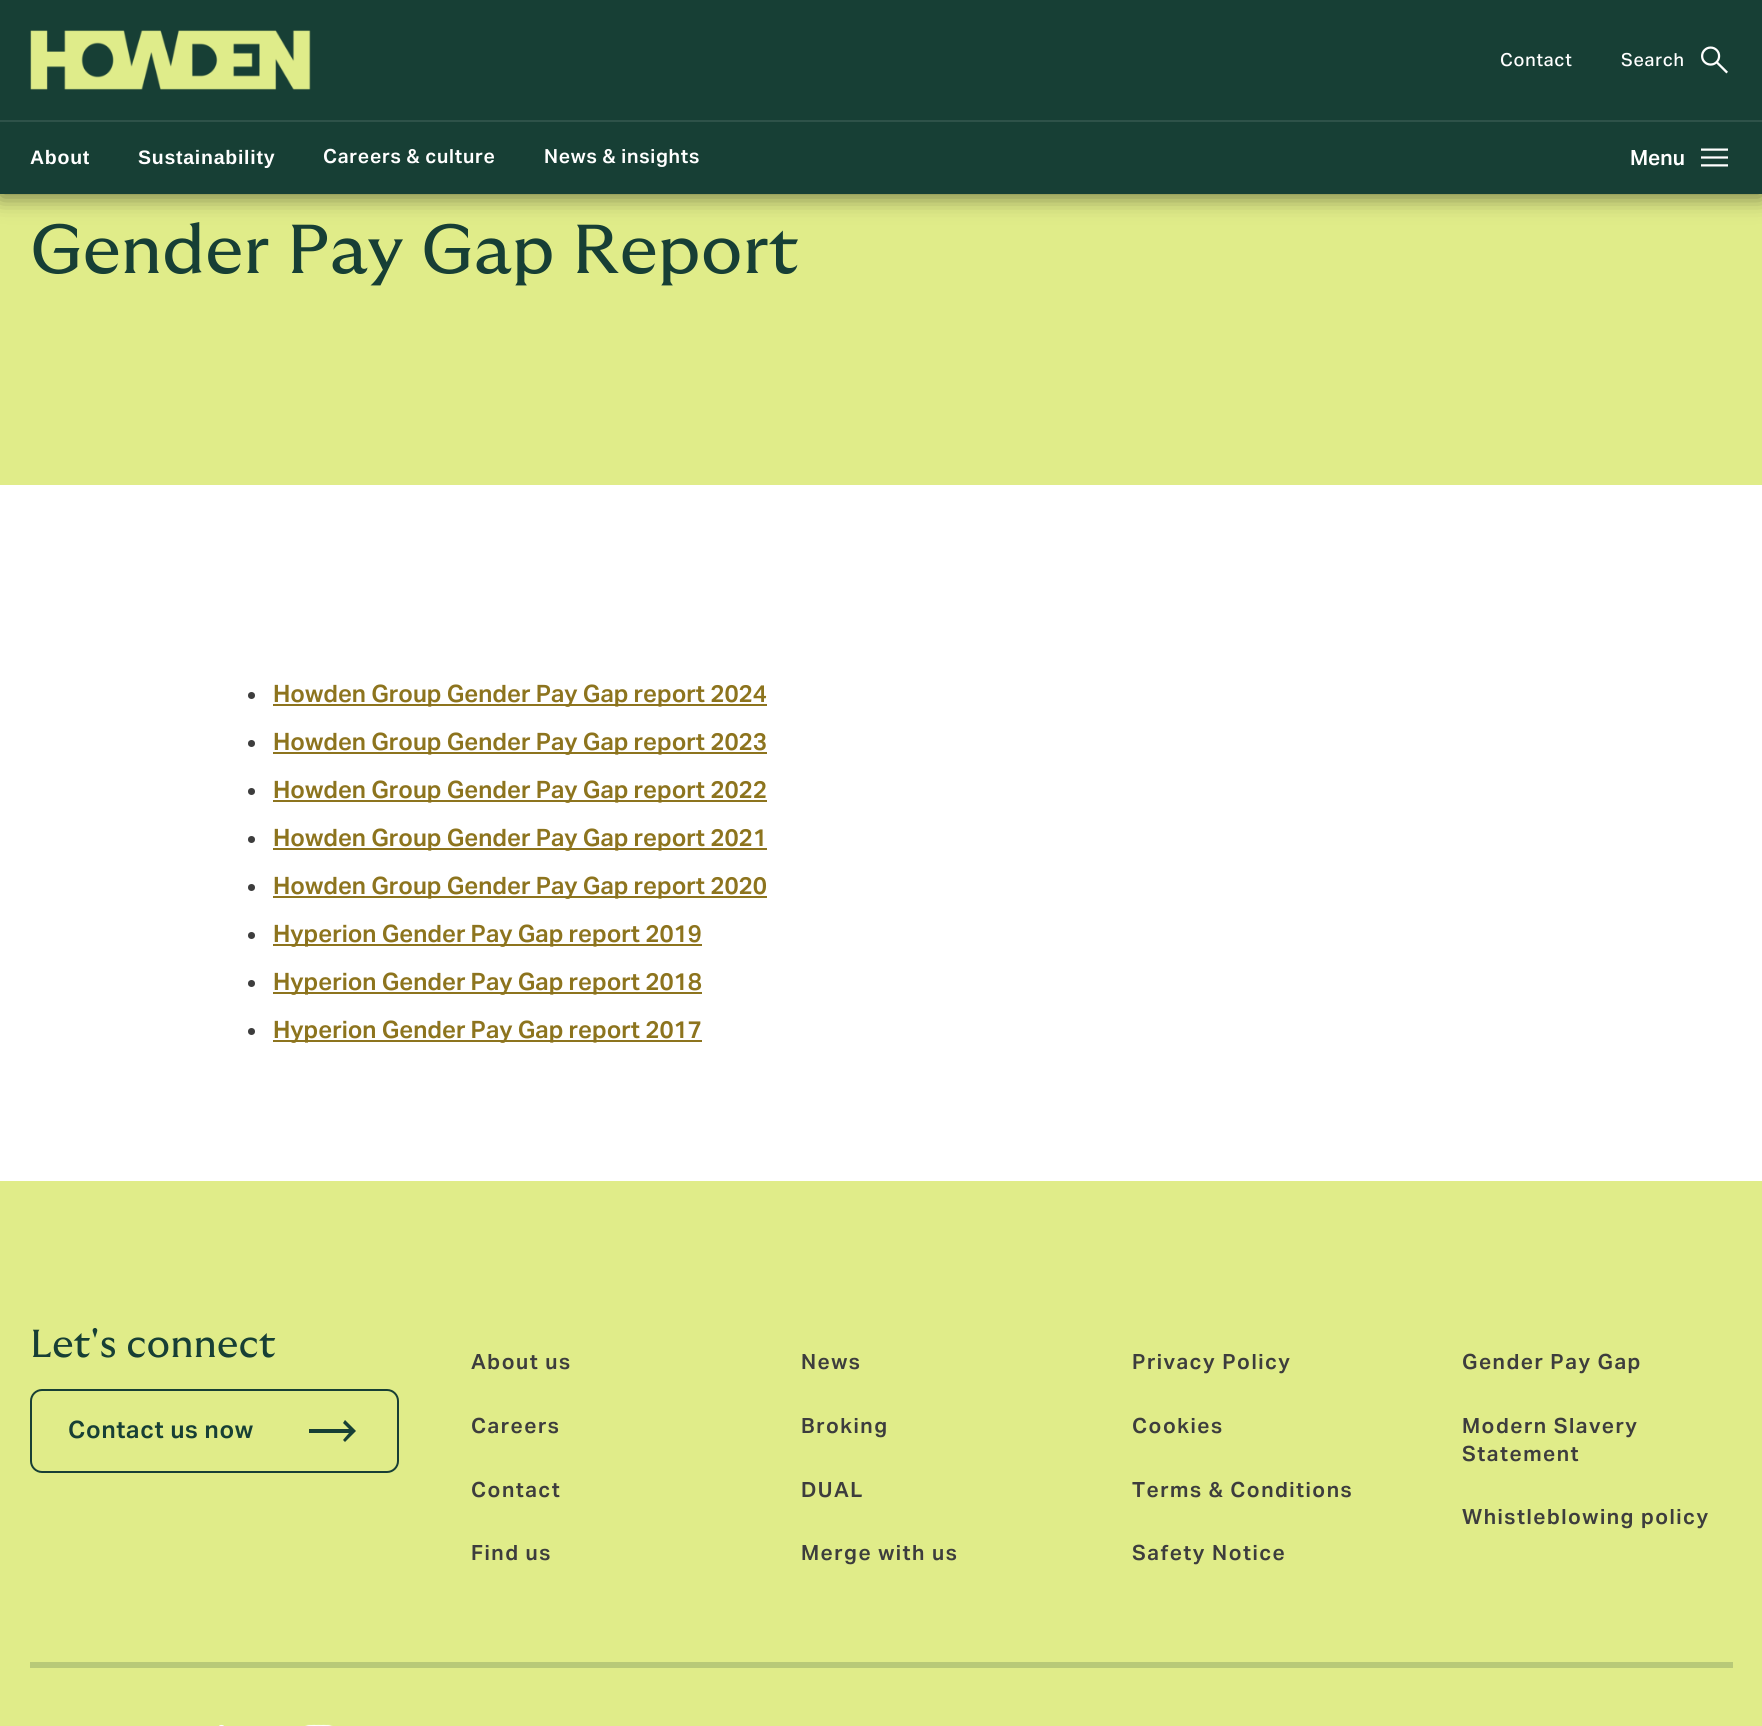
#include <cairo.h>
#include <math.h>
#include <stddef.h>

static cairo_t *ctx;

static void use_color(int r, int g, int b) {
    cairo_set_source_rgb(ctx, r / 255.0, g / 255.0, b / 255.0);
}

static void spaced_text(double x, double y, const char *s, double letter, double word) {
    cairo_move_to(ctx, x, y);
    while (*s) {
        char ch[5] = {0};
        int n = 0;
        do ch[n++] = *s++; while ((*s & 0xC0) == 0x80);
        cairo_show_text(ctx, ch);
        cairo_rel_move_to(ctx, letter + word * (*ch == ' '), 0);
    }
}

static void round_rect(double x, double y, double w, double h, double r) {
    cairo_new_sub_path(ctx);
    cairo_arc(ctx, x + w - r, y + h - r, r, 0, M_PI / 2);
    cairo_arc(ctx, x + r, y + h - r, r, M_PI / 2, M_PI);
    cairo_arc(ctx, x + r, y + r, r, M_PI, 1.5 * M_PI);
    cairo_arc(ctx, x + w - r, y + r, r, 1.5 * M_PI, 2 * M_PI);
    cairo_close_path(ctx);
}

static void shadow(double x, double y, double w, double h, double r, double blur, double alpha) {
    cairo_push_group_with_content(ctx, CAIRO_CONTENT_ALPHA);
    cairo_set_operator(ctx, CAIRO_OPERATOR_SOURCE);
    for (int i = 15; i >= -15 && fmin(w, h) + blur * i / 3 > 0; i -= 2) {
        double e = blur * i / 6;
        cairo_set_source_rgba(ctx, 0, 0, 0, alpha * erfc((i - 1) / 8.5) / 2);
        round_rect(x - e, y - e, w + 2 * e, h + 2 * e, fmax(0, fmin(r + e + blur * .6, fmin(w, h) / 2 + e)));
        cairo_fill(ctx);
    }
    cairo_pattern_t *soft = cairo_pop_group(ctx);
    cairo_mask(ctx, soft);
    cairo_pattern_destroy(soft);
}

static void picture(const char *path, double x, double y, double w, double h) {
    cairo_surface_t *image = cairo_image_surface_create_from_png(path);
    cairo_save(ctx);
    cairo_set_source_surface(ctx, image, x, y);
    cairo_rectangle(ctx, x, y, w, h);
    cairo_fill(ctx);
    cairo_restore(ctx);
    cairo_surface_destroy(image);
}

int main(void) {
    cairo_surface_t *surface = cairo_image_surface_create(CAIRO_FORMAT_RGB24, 1762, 1726);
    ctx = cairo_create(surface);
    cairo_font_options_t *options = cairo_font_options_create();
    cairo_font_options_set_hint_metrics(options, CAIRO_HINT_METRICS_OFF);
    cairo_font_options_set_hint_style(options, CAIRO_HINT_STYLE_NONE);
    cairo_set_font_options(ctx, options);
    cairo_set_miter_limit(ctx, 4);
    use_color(255, 255, 255);
    cairo_paint(ctx);
    use_color(224, 236, 137);
    cairo_rectangle(ctx, 0, 194, 1762, 291);
    cairo_fill(ctx);
    use_color(0, 0, 0);
    shadow(0, -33, 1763, 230, 0, 11, 0.5);
    use_color(23, 63, 53);
    cairo_rectangle(ctx, 0, 0, 1762, 194);
    cairo_fill(ctx);
    use_color(46, 82, 73);
    cairo_rectangle(ctx, 0, 120, 1762, 2);
    cairo_fill(ctx);
    picture("img1.png", 30, 30, 281, 60);
    cairo_select_font_face(ctx, "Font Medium", CAIRO_FONT_SLANT_NORMAL, CAIRO_FONT_WEIGHT_NORMAL);
    cairo_set_font_size(ctx, 18);
    use_color(255, 255, 255);
    spaced_text(1500, 66, "Contact", 0.75, 0);
    spaced_text(1621, 66, "Search", 0.75, 0);
    picture("img2.png", 1701, 46, 27, 28);
    cairo_select_font_face(ctx, "Liberation Sans", CAIRO_FONT_SLANT_NORMAL, CAIRO_FONT_WEIGHT_BOLD);
    cairo_set_font_size(ctx, 19.5);
    spaced_text(30, 164, "About", 0.75, 0);
    spaced_text(138, 164, "Sustainability", 0.75, 0);
    cairo_select_font_face(ctx, "Font SemiBold", CAIRO_FONT_SLANT_NORMAL, CAIRO_FONT_WEIGHT_NORMAL);
    spaced_text(323, 163, "Careers & culture", 0.75, 0);
    spaced_text(544, 163, "News & insights", 0.75, 0);
    cairo_set_font_size(ctx, 21);
    cairo_move_to(ctx, 1630, 165);
    cairo_show_text(ctx, "Menu");
    picture("img3.png", 1701, 148, 27, 19);
    cairo_select_font_face(ctx, "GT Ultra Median", CAIRO_FONT_SLANT_NORMAL, CAIRO_FONT_WEIGHT_NORMAL);
    cairo_set_font_size(ctx, 69);
    use_color(23, 63, 53);
    cairo_move_to(ctx, 30, 273);
    cairo_show_text(ctx, "Gender Pay Gap Report");
    use_color(61, 61, 61);
    cairo_new_path(ctx);
    cairo_arc(ctx, 251.5, 695.5, 3.5, 0, 2 * M_PI);
    cairo_fill(ctx);
    use_color(141, 116, 30);
    cairo_rectangle(ctx, 273, 704, 494, 2);
    cairo_fill(ctx);
    cairo_select_font_face(ctx, "Font SemiBold", CAIRO_FONT_SLANT_NORMAL, CAIRO_FONT_WEIGHT_NORMAL);
    cairo_set_font_size(ctx, 24);
    cairo_move_to(ctx, 273, 702);
    cairo_show_text(ctx, "Howden Group Gender Pay Gap report 2024");
    use_color(61, 61, 61);
    cairo_new_path(ctx);
    cairo_arc(ctx, 251.5, 743.5, 3.5, 0, 2 * M_PI);
    cairo_fill(ctx);
    use_color(141, 116, 30);
    cairo_rectangle(ctx, 273, 752, 494, 2);
    cairo_fill(ctx);
    cairo_move_to(ctx, 273, 750);
    cairo_show_text(ctx, "Howden Group Gender Pay Gap report 2023");
    use_color(61, 61, 61);
    cairo_new_path(ctx);
    cairo_arc(ctx, 251.5, 791.5, 3.5, 0, 2 * M_PI);
    cairo_fill(ctx);
    use_color(141, 116, 30);
    cairo_rectangle(ctx, 273, 800, 494, 2);
    cairo_fill(ctx);
    cairo_move_to(ctx, 273, 798);
    cairo_show_text(ctx, "Howden Group Gender Pay Gap report 2022");
    use_color(61, 61, 61);
    cairo_new_path(ctx);
    cairo_arc(ctx, 251.5, 839.5, 3.5, 0, 2 * M_PI);
    cairo_fill(ctx);
    use_color(141, 116, 30);
    cairo_rectangle(ctx, 273, 848, 494, 2);
    cairo_fill(ctx);
    cairo_move_to(ctx, 273, 846);
    cairo_show_text(ctx, "Howden Group Gender Pay Gap report 2021");
    use_color(61, 61, 61);
    cairo_new_path(ctx);
    cairo_arc(ctx, 251.5, 887.5, 3.5, 0, 2 * M_PI);
    cairo_fill(ctx);
    use_color(141, 116, 30);
    cairo_rectangle(ctx, 273, 896, 494, 2);
    cairo_fill(ctx);
    cairo_move_to(ctx, 273, 894);
    cairo_show_text(ctx, "Howden Group Gender Pay Gap report 2020");
    use_color(61, 61, 61);
    cairo_new_path(ctx);
    cairo_arc(ctx, 251.5, 935.5, 3.5, 0, 2 * M_PI);
    cairo_fill(ctx);
    use_color(141, 116, 30);
    cairo_rectangle(ctx, 273, 944, 429, 2);
    cairo_fill(ctx);
    cairo_move_to(ctx, 273, 942);
    cairo_show_text(ctx, "Hyperion Gender Pay Gap report 2019");
    use_color(61, 61, 61);
    cairo_new_path(ctx);
    cairo_arc(ctx, 251.5, 983.5, 3.5, 0, 2 * M_PI);
    cairo_fill(ctx);
    use_color(141, 116, 30);
    cairo_rectangle(ctx, 273, 992, 429, 2);
    cairo_fill(ctx);
    cairo_move_to(ctx, 273, 990);
    cairo_show_text(ctx, "Hyperion Gender Pay Gap report 2018");
    use_color(61, 61, 61);
    cairo_new_path(ctx);
    cairo_arc(ctx, 251.5, 1031.5, 3.5, 0, 2 * M_PI);
    cairo_fill(ctx);
    use_color(141, 116, 30);
    cairo_rectangle(ctx, 273, 1040, 429, 2);
    cairo_fill(ctx);
    cairo_move_to(ctx, 273, 1038);
    cairo_show_text(ctx, "Hyperion Gender Pay Gap report 2017");
    use_color(224, 236, 137);
    cairo_rectangle(ctx, 0, 1181, 1762, 545);
    cairo_fill(ctx);
    cairo_select_font_face(ctx, "GT Ultra Median", CAIRO_FONT_SLANT_NORMAL, CAIRO_FONT_WEIGHT_NORMAL);
    cairo_set_font_size(ctx, 39);
    use_color(23, 63, 53);
    cairo_move_to(ctx, 30, 1357);
    cairo_show_text(ctx, "Let's connect");
    round_rect(31, 1390, 367, 82, 11);
    cairo_stroke(ctx);
    cairo_select_font_face(ctx, "Font SemiBold", CAIRO_FONT_SLANT_NORMAL, CAIRO_FONT_WEIGHT_NORMAL);
    cairo_set_font_size(ctx, 24);
    spaced_text(68, 1438, "Contact us now", 0.75, 0);
    cairo_new_path(ctx);
    cairo_move_to(ctx, 345, 1442);
    cairo_line_to(ctx, 343, 1440);
    cairo_line_to(ctx, 349, 1433);
    cairo_line_to(ctx, 309, 1433);
    cairo_line_to(ctx, 309, 1429);
    cairo_line_to(ctx, 349, 1429);
    cairo_line_to(ctx, 343, 1423);
    cairo_line_to(ctx, 345, 1420);
    cairo_line_to(ctx, 356, 1431);
    cairo_close_path(ctx);
    cairo_fill(ctx);
    cairo_set_font_size(ctx, 21);
    use_color(61, 61, 61);
    spaced_text(471, 1369, "About us", 1.5, 0);
    spaced_text(471, 1433, "Careers", 1.5, 0);
    spaced_text(471, 1497, "Contact", 1.5, 0);
    spaced_text(471, 1560, "Find us", 1.5, 0);
    spaced_text(801, 1369, "News", 1.5, 0);
    spaced_text(801, 1433, "Broking", 1.5, 0);
    spaced_text(801, 1497, "DUAL", 1.5, 0);
    spaced_text(801, 1560, "Merge with us", 1.5, 0);
    spaced_text(1132, 1369, "Privacy Policy", 1.5, 0);
    spaced_text(1132, 1433, "Cookies", 1.5, 0);
    spaced_text(1132, 1497, "Terms & Conditions", 1.5, 0);
    spaced_text(1132, 1560, "Safety Notice", 1.5, 0);
    spaced_text(1462, 1369, "Gender Pay Gap", 1.5, 0);
    spaced_text(1462, 1433, "Modern Slavery", 1.5, 0);
    spaced_text(1462, 1461, "Statement", 1.5, 0);
    spaced_text(1462, 1524, "Whistleblowing policy", 1.5, 0);
    use_color(184, 201, 120);
    cairo_rectangle(ctx, 30, 1662, 1703, 6);
    cairo_fill(ctx);
    picture("img4.png", 219, 1724, 5, 2);
    picture("img5.png", 305, 1724, 28, 2);
    cairo_surface_write_to_png(surface, "result.png");
    cairo_font_options_destroy(options);
    cairo_destroy(ctx);
    cairo_surface_destroy(surface);
    return 0;
}
